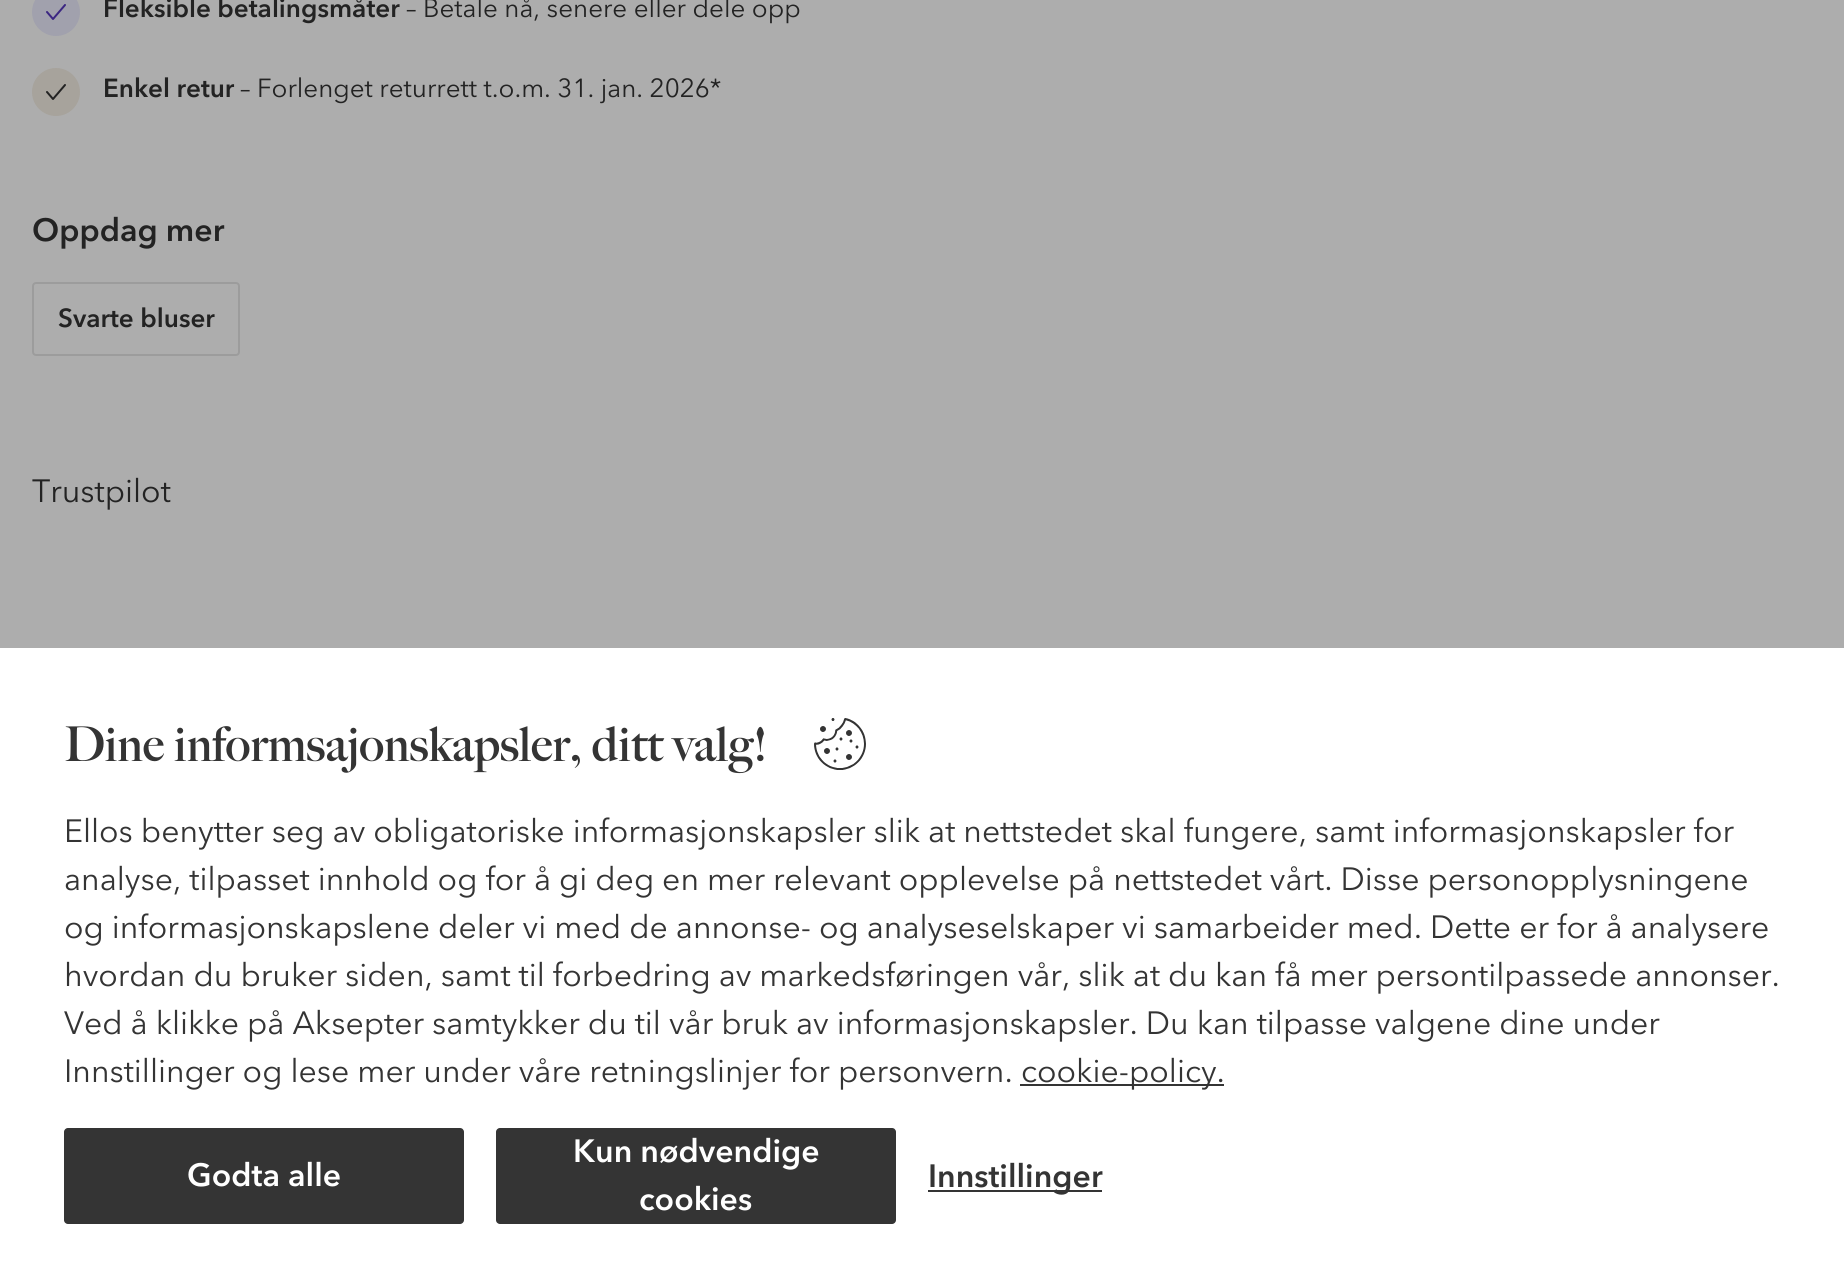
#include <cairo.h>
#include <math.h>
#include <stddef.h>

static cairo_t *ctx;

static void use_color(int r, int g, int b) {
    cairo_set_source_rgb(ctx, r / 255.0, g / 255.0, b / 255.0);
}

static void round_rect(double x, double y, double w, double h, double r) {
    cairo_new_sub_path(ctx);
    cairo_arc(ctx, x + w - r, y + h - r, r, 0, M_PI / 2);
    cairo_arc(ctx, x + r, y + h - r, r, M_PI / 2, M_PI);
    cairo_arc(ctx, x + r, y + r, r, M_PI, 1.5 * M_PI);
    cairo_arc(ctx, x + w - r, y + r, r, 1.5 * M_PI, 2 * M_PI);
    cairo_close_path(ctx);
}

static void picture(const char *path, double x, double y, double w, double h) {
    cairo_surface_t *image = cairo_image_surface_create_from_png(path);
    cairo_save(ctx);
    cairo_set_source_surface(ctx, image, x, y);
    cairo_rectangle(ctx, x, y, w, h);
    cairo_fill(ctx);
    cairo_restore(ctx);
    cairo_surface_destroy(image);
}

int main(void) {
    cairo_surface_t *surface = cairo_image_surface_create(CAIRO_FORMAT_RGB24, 1844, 1287);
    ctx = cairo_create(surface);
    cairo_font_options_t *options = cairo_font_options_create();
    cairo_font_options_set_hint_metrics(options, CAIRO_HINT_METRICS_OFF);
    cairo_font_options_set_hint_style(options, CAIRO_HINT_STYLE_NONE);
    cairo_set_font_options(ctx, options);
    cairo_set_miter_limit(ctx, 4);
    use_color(173, 173, 173);
    cairo_paint(ctx);
    use_color(161, 161, 173);
    cairo_arc(ctx, 56, 12, 24, 0, 2 * M_PI);
    cairo_fill(ctx);
    picture("img1.png", 46, 4, 20, 16);
    cairo_select_font_face(ctx, "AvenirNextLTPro", CAIRO_FONT_SLANT_NORMAL, CAIRO_FONT_WEIGHT_BOLD);
    cairo_set_font_size(ctx, 26);
    use_color(35, 35, 35);
    cairo_move_to(ctx, 103, 17);
    cairo_show_text(ctx, "Fleksible betalingsmåter");
    cairo_select_font_face(ctx, "AvenirNextLTPro", CAIRO_FONT_SLANT_NORMAL, CAIRO_FONT_WEIGHT_NORMAL);
    cairo_move_to(ctx, 406, 17);
    cairo_show_text(ctx, "– Betale nå, senere eller dele opp");
    use_color(167, 163, 156);
    cairo_new_path(ctx);
    cairo_arc(ctx, 56, 92, 24, 0, 2 * M_PI);
    cairo_fill(ctx);
    picture("img2.png", 46, 84, 20, 16);
    cairo_select_font_face(ctx, "AvenirNextLTPro", CAIRO_FONT_SLANT_NORMAL, CAIRO_FONT_WEIGHT_BOLD);
    use_color(35, 35, 35);
    cairo_move_to(ctx, 103, 97);
    cairo_show_text(ctx, "Enkel retur");
    cairo_select_font_face(ctx, "AvenirNextLTPro", CAIRO_FONT_SLANT_NORMAL, CAIRO_FONT_WEIGHT_NORMAL);
    cairo_move_to(ctx, 240, 97);
    cairo_show_text(ctx, "– Forlenget returrett t.o.m. 31. jan. 2026*");
    cairo_select_font_face(ctx, "AvenirNextLTPro", CAIRO_FONT_SLANT_NORMAL, CAIRO_FONT_WEIGHT_BOLD);
    cairo_set_font_size(ctx, 32);
    cairo_move_to(ctx, 32, 241);
    cairo_show_text(ctx, "Oppdag mer");
    round_rect(33, 283, 206, 72, 3);
    use_color(156, 156, 156);
    cairo_stroke(ctx);
    cairo_set_font_size(ctx, 26);
    use_color(35, 35, 35);
    cairo_move_to(ctx, 58, 327);
    cairo_show_text(ctx, "Svarte bluser");
    cairo_select_font_face(ctx, "AvenirNextLTPro", CAIRO_FONT_SLANT_NORMAL, CAIRO_FONT_WEIGHT_NORMAL);
    cairo_set_font_size(ctx, 32);
    cairo_move_to(ctx, 32, 502);
    cairo_show_text(ctx, "Trustpilot");
    use_color(255, 255, 255);
    cairo_rectangle(ctx, 0, 648, 1844, 639);
    cairo_fill(ctx);
    cairo_select_font_face(ctx, "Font", CAIRO_FONT_SLANT_NORMAL, CAIRO_FONT_WEIGHT_BOLD);
    cairo_set_font_size(ctx, 48);
    use_color(52, 52, 52);
    cairo_move_to(ctx, 64, 761);
    cairo_show_text(ctx, "Dine informsajonskapsler, ditt valg!");
    picture("img3.png", 814, 718, 52, 52);
    cairo_select_font_face(ctx, "AvenirNextLTPro", CAIRO_FONT_SLANT_NORMAL, CAIRO_FONT_WEIGHT_NORMAL);
    cairo_set_font_size(ctx, 32);
    cairo_move_to(ctx, 64, 842);
    cairo_show_text(ctx, "Ellos benytter seg av obligatoriske informasjonskapsler slik at nettstedet skal fungere, samt informasjonskapsler for");
    cairo_move_to(ctx, 64, 890);
    cairo_show_text(ctx, "analyse, tilpasset innhold og for å gi deg en mer relevant opplevelse på nettstedet vårt. Disse personopplysningene");
    cairo_move_to(ctx, 64, 938);
    cairo_show_text(ctx, "og informasjonskapslene deler vi med de annonse- og analyseselskaper vi samarbeider med. Dette er for å analysere");
    cairo_move_to(ctx, 64, 986);
    cairo_show_text(ctx, "hvordan du bruker siden, samt til forbedring av markedsføringen vår, slik at du kan få mer persontilpassede annonser.");
    cairo_move_to(ctx, 64, 1034);
    cairo_show_text(ctx, "Ved å klikke på Aksepter samtykker du til vår bruk av informasjonskapsler. Du kan tilpasse valgene dine under");
    cairo_move_to(ctx, 64, 1082);
    cairo_show_text(ctx, "Innstillinger og lese mer under våre retningslinjer for personvern.");
    cairo_rectangle(ctx, 1020, 1084, 204, 2);
    cairo_fill(ctx);
    cairo_move_to(ctx, 1021, 1082);
    cairo_show_text(ctx, "cookie-policy.");
    round_rect(64, 1128, 400, 96, 4);
    cairo_fill(ctx);
    cairo_select_font_face(ctx, "AvenirNextLTPro", CAIRO_FONT_SLANT_NORMAL, CAIRO_FONT_WEIGHT_BOLD);
    use_color(255, 255, 255);
    cairo_move_to(ctx, 187, 1186);
    cairo_show_text(ctx, "Godta alle");
    use_color(52, 52, 52);
    round_rect(496, 1128, 400, 96, 4);
    cairo_fill(ctx);
    use_color(255, 255, 255);
    cairo_move_to(ctx, 573, 1162);
    cairo_show_text(ctx, "Kun nødvendige");
    cairo_move_to(ctx, 639, 1210);
    cairo_show_text(ctx, "cookies");
    use_color(52, 52, 52);
    cairo_rectangle(ctx, 928, 1190, 174, 2);
    cairo_fill(ctx);
    cairo_move_to(ctx, 928, 1187);
    cairo_show_text(ctx, "Innstillinger");
    cairo_surface_write_to_png(surface, "result.png");
    cairo_font_options_destroy(options);
    cairo_destroy(ctx);
    cairo_surface_destroy(surface);
    return 0;
}
